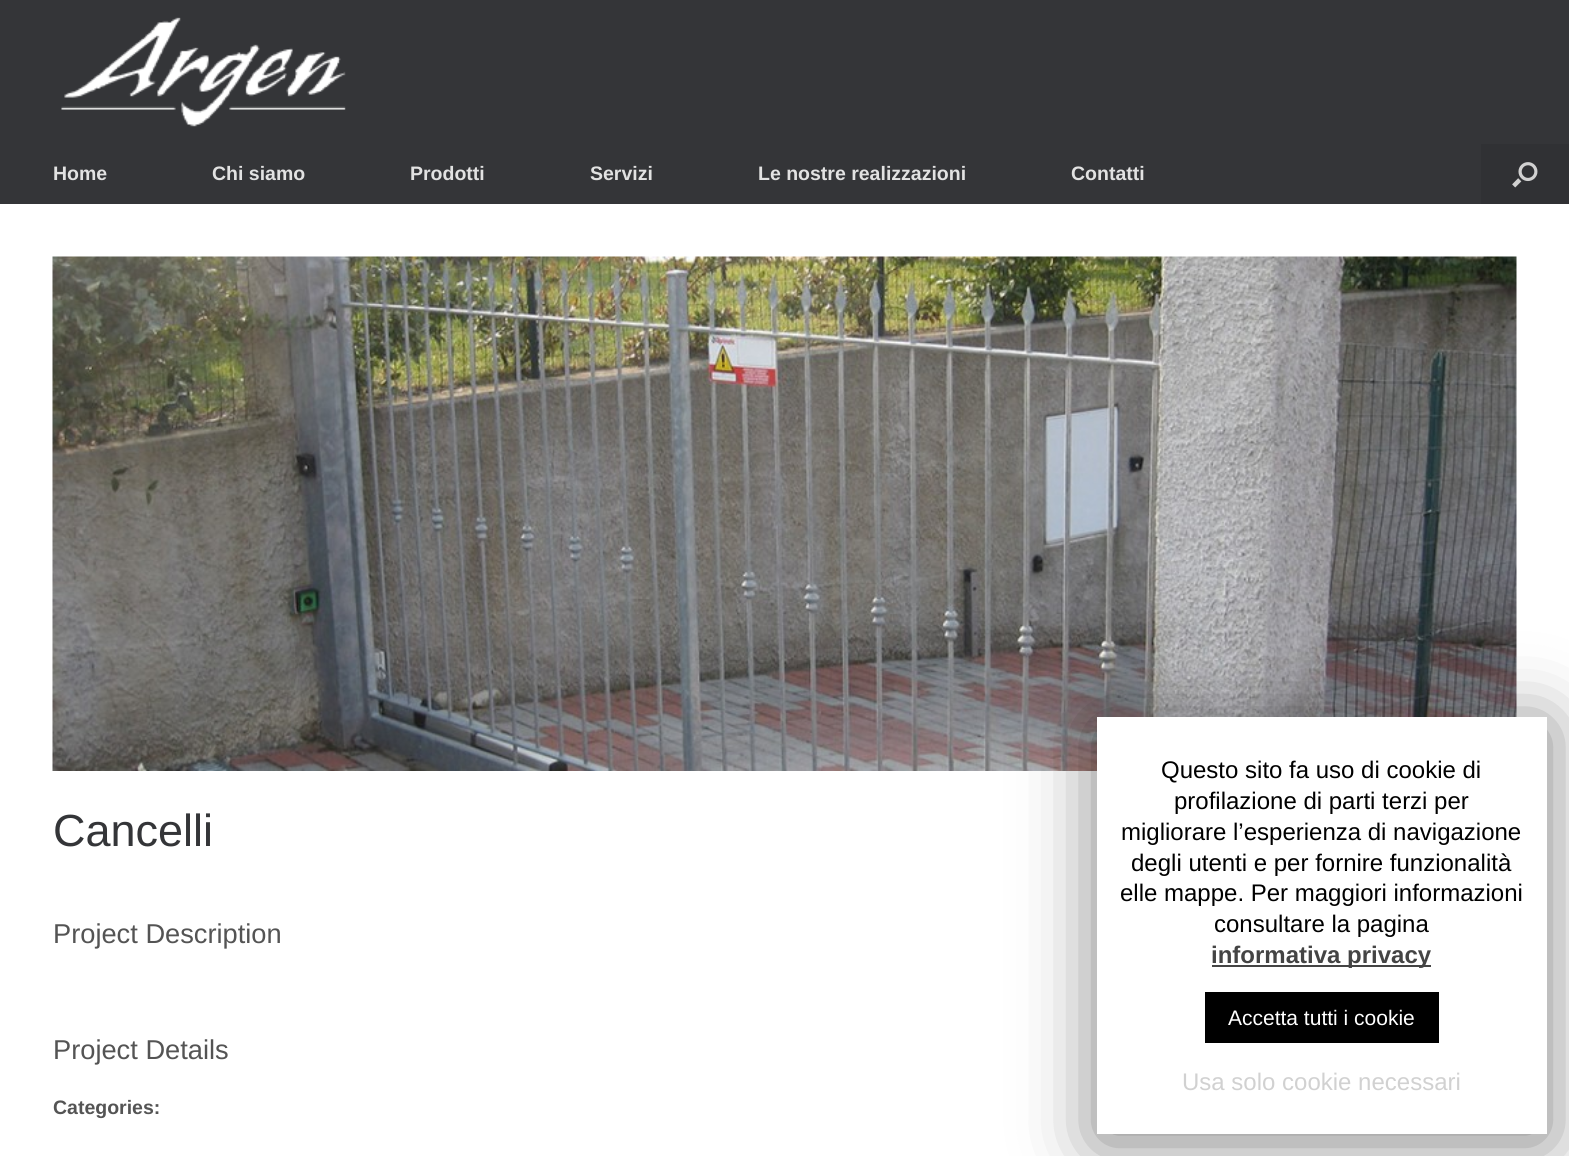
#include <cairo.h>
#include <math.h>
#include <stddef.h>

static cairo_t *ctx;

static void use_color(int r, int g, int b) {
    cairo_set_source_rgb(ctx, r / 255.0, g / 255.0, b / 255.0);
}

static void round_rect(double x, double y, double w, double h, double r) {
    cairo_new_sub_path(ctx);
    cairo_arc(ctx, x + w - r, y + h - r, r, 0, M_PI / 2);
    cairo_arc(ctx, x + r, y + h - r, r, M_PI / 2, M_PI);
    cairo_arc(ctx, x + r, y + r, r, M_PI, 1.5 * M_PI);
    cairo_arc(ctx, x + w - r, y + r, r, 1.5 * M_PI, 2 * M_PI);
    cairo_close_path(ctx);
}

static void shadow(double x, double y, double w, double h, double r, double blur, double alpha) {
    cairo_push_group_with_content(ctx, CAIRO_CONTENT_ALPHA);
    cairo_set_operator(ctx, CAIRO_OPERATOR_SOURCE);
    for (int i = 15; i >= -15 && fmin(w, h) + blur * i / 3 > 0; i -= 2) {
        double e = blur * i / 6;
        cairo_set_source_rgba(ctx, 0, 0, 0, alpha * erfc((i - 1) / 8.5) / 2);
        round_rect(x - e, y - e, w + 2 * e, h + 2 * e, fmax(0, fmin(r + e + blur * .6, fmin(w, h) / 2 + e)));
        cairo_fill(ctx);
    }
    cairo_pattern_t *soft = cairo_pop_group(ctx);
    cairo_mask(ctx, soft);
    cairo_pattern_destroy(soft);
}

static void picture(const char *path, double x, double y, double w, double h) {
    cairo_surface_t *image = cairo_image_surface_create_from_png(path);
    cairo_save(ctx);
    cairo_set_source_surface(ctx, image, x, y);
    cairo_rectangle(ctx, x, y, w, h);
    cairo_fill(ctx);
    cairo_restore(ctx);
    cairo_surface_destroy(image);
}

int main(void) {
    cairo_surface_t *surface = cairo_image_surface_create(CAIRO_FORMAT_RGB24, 1569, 1156);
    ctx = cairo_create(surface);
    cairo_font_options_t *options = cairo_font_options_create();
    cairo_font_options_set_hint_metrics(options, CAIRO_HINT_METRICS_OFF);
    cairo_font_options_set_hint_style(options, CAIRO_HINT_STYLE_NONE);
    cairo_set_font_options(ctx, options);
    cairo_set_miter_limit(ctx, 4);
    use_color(52, 53, 56);
    cairo_paint(ctx);
    picture("img1.png", 61, 17, 285, 110);
    cairo_select_font_face(ctx, "Liberation Sans", CAIRO_FONT_SLANT_NORMAL, CAIRO_FONT_WEIGHT_BOLD);
    cairo_set_font_size(ctx, 19.5);
    use_color(226, 226, 226);
    cairo_move_to(ctx, 53, 180);
    cairo_show_text(ctx, "Home");
    cairo_move_to(ctx, 212, 180);
    cairo_show_text(ctx, "Chi siamo");
    cairo_move_to(ctx, 410, 180);
    cairo_show_text(ctx, "Prodotti");
    cairo_move_to(ctx, 590, 180);
    cairo_show_text(ctx, "Servizi");
    cairo_move_to(ctx, 758, 180);
    cairo_show_text(ctx, "Le nostre realizzazioni");
    cairo_move_to(ctx, 1071, 180);
    cairo_show_text(ctx, "Contatti");
    use_color(48, 49, 52);
    cairo_rectangle(ctx, 1481, 144, 88, 60);
    cairo_fill(ctx);
    picture("img2.png", 1512, 162, 26, 26);
    use_color(255, 255, 255);
    cairo_rectangle(ctx, 0, 204, 1569, 952);
    cairo_fill(ctx);
    picture("img3.png", 52, 256, 1465, 515);
    cairo_select_font_face(ctx, "Liberation Sans", CAIRO_FONT_SLANT_NORMAL, CAIRO_FONT_WEIGHT_NORMAL);
    cairo_set_font_size(ctx, 45);
    use_color(52, 53, 56);
    cairo_move_to(ctx, 53, 846);
    cairo_show_text(ctx, "Cancelli");
    cairo_set_font_size(ctx, 27.25);
    use_color(84, 84, 84);
    cairo_move_to(ctx, 53, 943);
    cairo_show_text(ctx, "Project Description");
    cairo_move_to(ctx, 53, 1059);
    cairo_show_text(ctx, "Project Details");
    cairo_select_font_face(ctx, "Liberation Sans", CAIRO_FONT_SLANT_NORMAL, CAIRO_FONT_WEIGHT_BOLD);
    cairo_set_font_size(ctx, 19.5);
    cairo_move_to(ctx, 53, 1114);
    cairo_show_text(ctx, "Categories:");
    use_color(0, 0, 0);
    shadow(1097, 725, 450, 417, 0, 37.5, 0.5);
    use_color(255, 255, 255);
    cairo_rectangle(ctx, 1097, 717, 450, 417);
    cairo_fill(ctx);
    cairo_select_font_face(ctx, "Liberation Sans", CAIRO_FONT_SLANT_NORMAL, CAIRO_FONT_WEIGHT_NORMAL);
    cairo_set_font_size(ctx, 24);
    use_color(0, 0, 0);
    cairo_move_to(ctx, 1161, 778);
    cairo_show_text(ctx, "Questo sito fa uso di cookie di");
    cairo_move_to(ctx, 1174, 809);
    cairo_show_text(ctx, "profilazione di parti terzi per");
    cairo_move_to(ctx, 1121, 840);
    cairo_show_text(ctx, "migliorare l’esperienza di navigazione");
    cairo_move_to(ctx, 1131, 871);
    cairo_show_text(ctx, "degli utenti e per fornire funzionalità");
    cairo_move_to(ctx, 1120, 901);
    cairo_show_text(ctx, "elle mappe. Per maggiori informazioni");
    cairo_move_to(ctx, 1214, 932);
    cairo_show_text(ctx, "consultare la pagina");
    use_color(68, 68, 68);
    cairo_rectangle(ctx, 1212, 965, 219, 2);
    cairo_fill(ctx);
    cairo_select_font_face(ctx, "Liberation Sans", CAIRO_FONT_SLANT_NORMAL, CAIRO_FONT_WEIGHT_BOLD);
    cairo_move_to(ctx, 1211, 963);
    cairo_show_text(ctx, "informativa privacy");
    use_color(0, 0, 0);
    cairo_rectangle(ctx, 1205, 992, 234, 51);
    cairo_fill(ctx);
    cairo_select_font_face(ctx, "Liberation Sans", CAIRO_FONT_SLANT_NORMAL, CAIRO_FONT_WEIGHT_NORMAL);
    cairo_set_font_size(ctx, 21);
    use_color(255, 255, 255);
    cairo_move_to(ctx, 1228, 1025);
    cairo_show_text(ctx, "Accetta tutti i cookie");
    cairo_set_font_size(ctx, 24);
    use_color(209, 209, 209);
    cairo_move_to(ctx, 1182, 1090);
    cairo_show_text(ctx, "Usa solo cookie necessari");
    cairo_surface_write_to_png(surface, "result.png");
    cairo_font_options_destroy(options);
    cairo_destroy(ctx);
    cairo_surface_destroy(surface);
    return 0;
}
